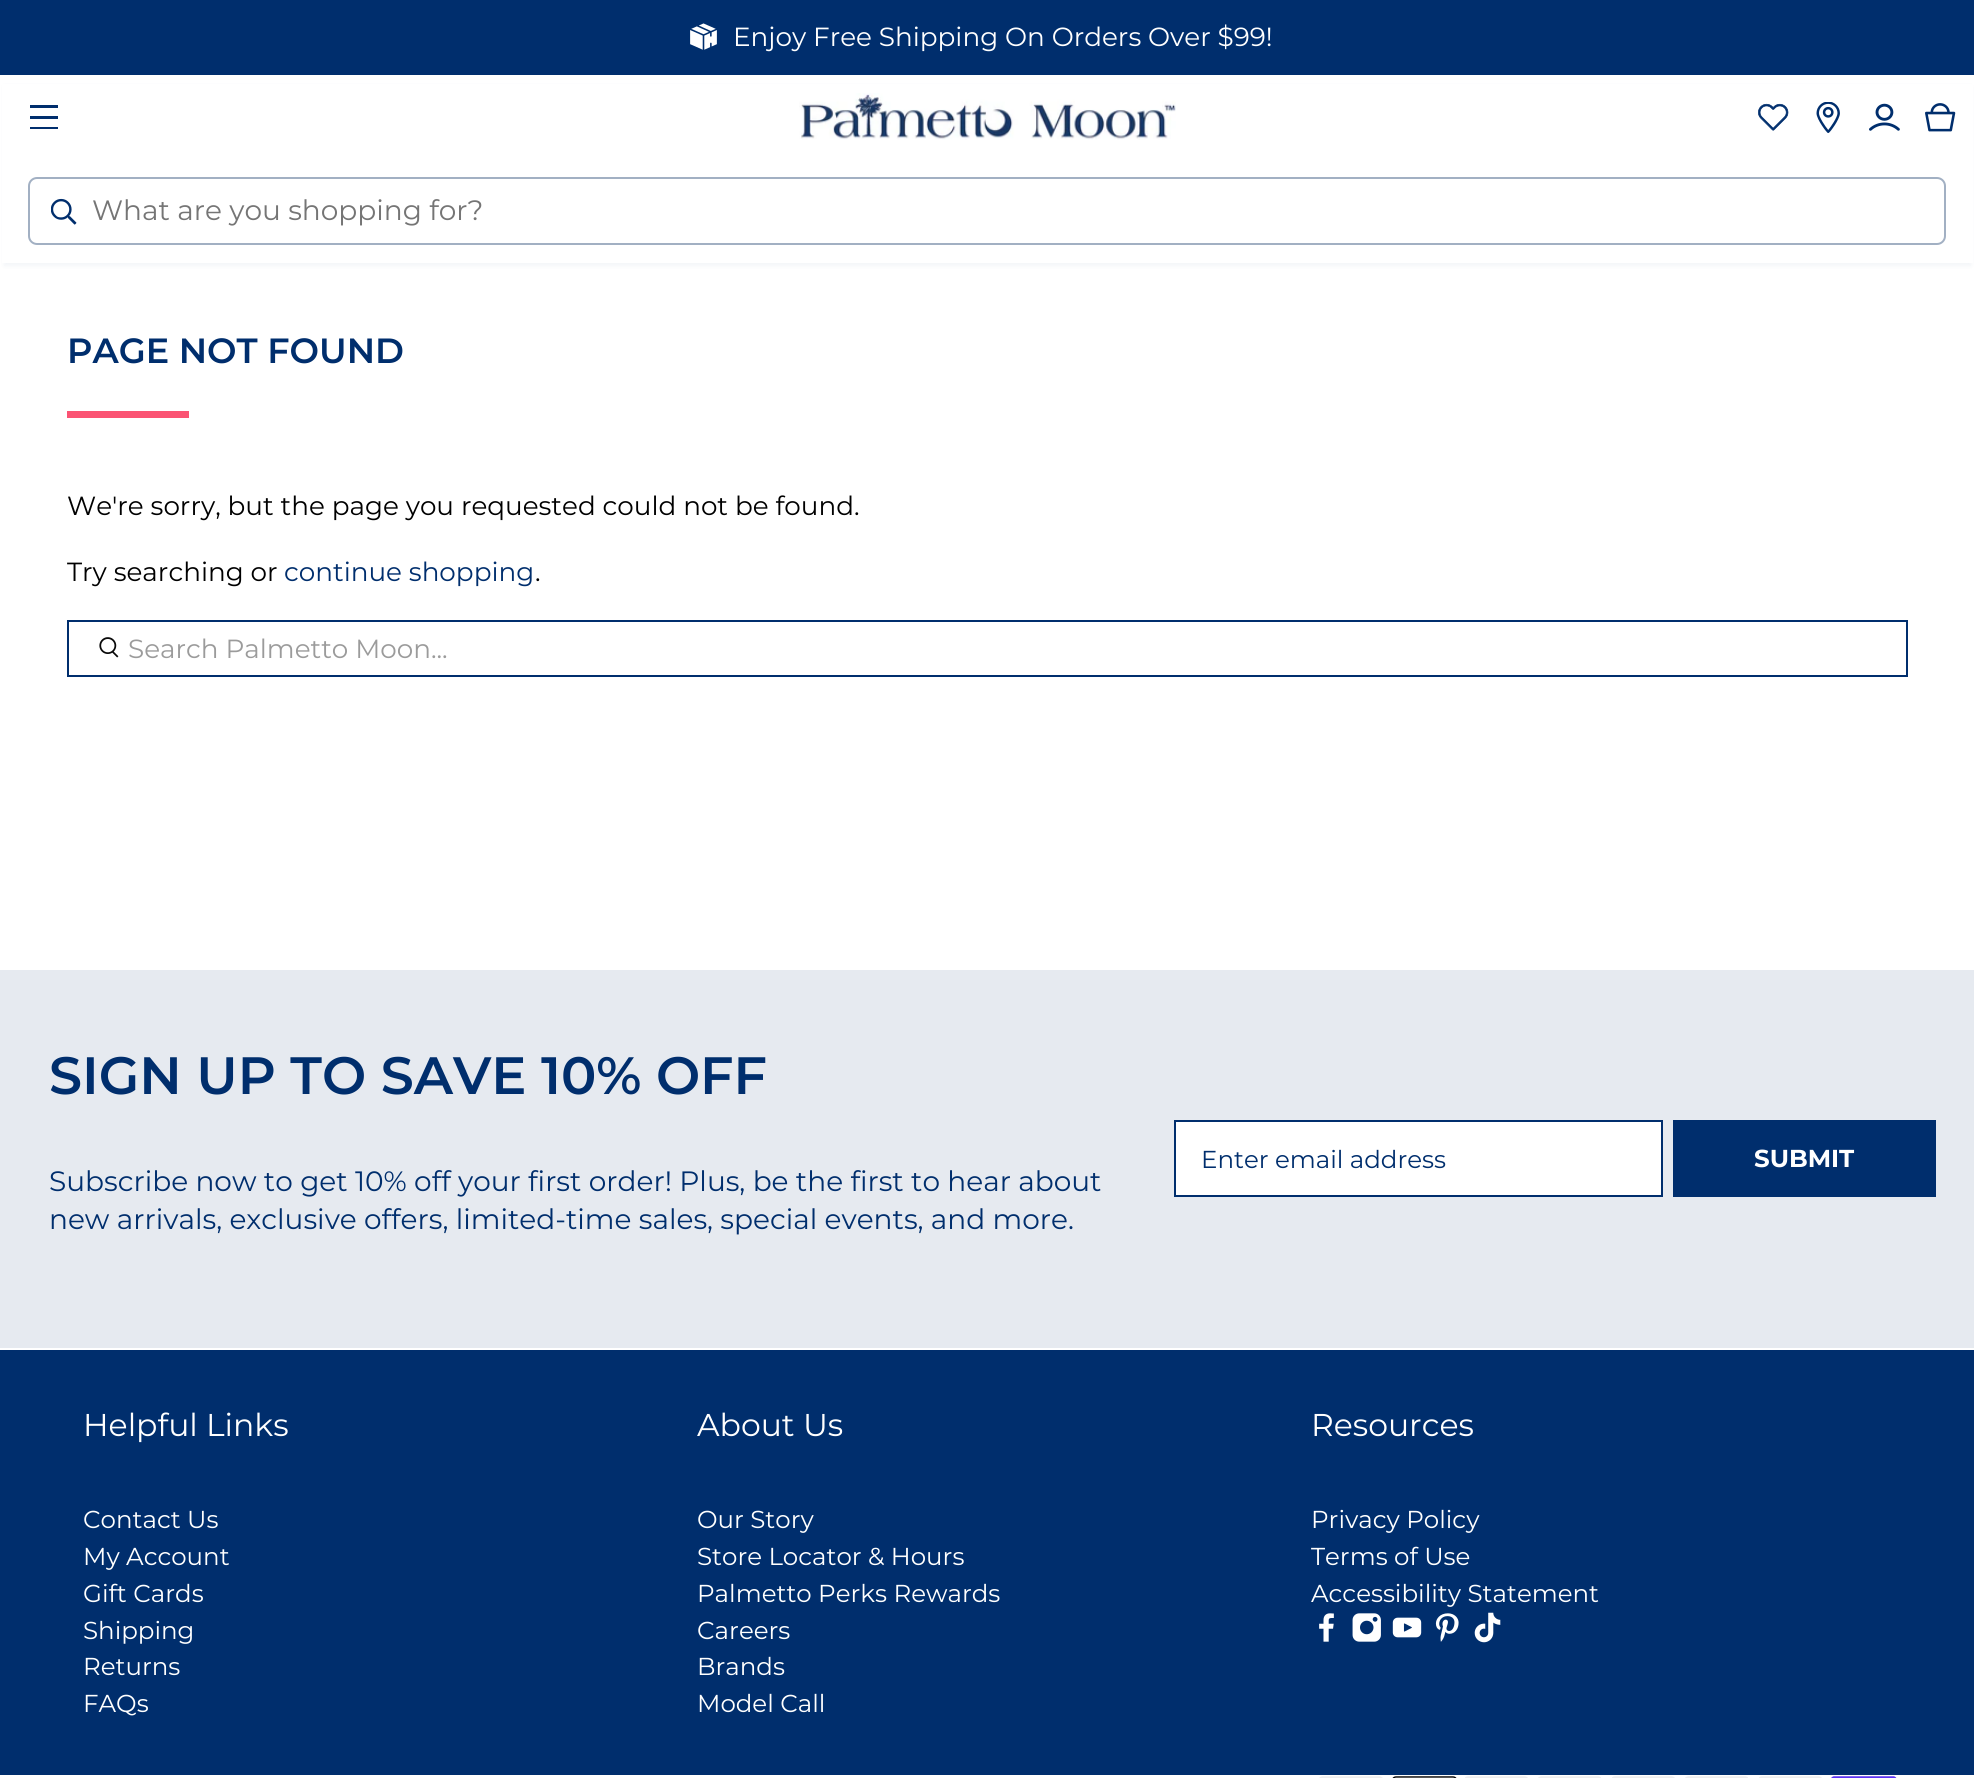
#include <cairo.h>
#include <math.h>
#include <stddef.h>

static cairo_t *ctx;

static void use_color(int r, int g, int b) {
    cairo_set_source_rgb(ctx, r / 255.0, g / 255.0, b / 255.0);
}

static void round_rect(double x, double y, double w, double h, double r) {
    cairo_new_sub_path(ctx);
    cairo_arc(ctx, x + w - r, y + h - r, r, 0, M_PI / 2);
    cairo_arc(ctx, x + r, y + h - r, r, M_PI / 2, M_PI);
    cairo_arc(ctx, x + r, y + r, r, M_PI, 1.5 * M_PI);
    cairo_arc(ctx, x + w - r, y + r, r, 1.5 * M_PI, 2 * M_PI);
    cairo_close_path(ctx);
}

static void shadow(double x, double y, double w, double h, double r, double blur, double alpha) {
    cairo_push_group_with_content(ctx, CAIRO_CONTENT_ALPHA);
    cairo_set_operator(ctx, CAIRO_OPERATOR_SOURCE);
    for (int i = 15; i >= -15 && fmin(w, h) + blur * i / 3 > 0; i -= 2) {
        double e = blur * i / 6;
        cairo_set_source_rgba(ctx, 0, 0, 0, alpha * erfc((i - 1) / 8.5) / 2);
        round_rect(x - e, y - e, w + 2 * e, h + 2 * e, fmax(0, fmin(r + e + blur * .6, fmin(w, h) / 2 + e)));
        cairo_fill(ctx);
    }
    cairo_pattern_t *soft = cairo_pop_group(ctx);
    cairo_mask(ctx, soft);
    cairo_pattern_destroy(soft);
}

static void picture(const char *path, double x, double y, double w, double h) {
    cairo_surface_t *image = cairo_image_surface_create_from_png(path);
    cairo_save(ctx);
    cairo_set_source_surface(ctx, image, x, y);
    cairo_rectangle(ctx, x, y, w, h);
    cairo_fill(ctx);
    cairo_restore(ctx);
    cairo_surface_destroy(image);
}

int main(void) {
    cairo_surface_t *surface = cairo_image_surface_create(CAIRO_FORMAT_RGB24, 1974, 1778);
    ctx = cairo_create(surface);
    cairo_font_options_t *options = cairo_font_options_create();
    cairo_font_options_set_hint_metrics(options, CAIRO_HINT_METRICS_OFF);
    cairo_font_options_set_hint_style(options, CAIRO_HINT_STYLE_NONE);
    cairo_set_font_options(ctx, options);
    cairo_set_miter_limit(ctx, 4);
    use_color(255, 255, 255);
    cairo_paint(ctx);
    use_color(0, 46, 109);
    cairo_rectangle(ctx, 0, 0, 1974, 75);
    cairo_fill(ctx);
    picture("img1.png", 690, 23, 27, 27);
    cairo_select_font_face(ctx, "Montserrat", CAIRO_FONT_SLANT_NORMAL, CAIRO_FONT_WEIGHT_NORMAL);
    cairo_set_font_size(ctx, 26.25);
    use_color(255, 255, 255);
    cairo_move_to(ctx, 733, 46);
    cairo_show_text(ctx, "Enjoy Free Shipping On Orders Over $99!");
    use_color(0, 46, 109);
    shadow(4, 86, 1967, 180, 0, 2, 0.05);
    use_color(255, 255, 255);
    cairo_rectangle(ctx, 2, 84, 1971, 179);
    cairo_fill(ctx);
    use_color(0, 46, 109);
    cairo_rectangle(ctx, 30, 105, 28, 3);
    cairo_fill(ctx);
    cairo_rectangle(ctx, 30, 116, 28, 3);
    cairo_fill(ctx);
    cairo_rectangle(ctx, 30, 127, 28, 2);
    cairo_fill(ctx);
    picture("img2.png", 799, 93, 377, 47);
    picture("img3.png", 1758, 103, 31, 28);
    picture("img4.png", 1816, 102, 24, 31);
    picture("img5.png", 1869, 103, 31, 28);
    picture("img6.png", 1925, 103, 31, 29);
    round_rect(29, 178, 1916, 66, 8);
    use_color(162, 176, 195);
    cairo_stroke(ctx);
    picture("img7.png", 51, 198, 26, 27);
    cairo_set_font_size(ctx, 28);
    use_color(117, 117, 117);
    cairo_move_to(ctx, 92, 220);
    cairo_show_text(ctx, "What are you shopping for?");
    cairo_select_font_face(ctx, "Montserrat SemiBold", CAIRO_FONT_SLANT_NORMAL, CAIRO_FONT_WEIGHT_NORMAL);
    cairo_set_font_size(ctx, 35);
    use_color(0, 46, 109);
    cairo_move_to(ctx, 67, 363);
    cairo_show_text(ctx, "PAGE NOT FOUND");
    use_color(251, 83, 115);
    cairo_rectangle(ctx, 67, 411, 122, 7);
    cairo_fill(ctx);
    cairo_select_font_face(ctx, "Montserrat", CAIRO_FONT_SLANT_NORMAL, CAIRO_FONT_WEIGHT_NORMAL);
    cairo_set_font_size(ctx, 26.25);
    use_color(0, 0, 0);
    cairo_move_to(ctx, 67, 515);
    cairo_show_text(ctx, "We're sorry, but the page you requested could not be found.");
    cairo_move_to(ctx, 67, 581);
    cairo_show_text(ctx, "Try searching or");
    use_color(0, 46, 109);
    cairo_move_to(ctx, 284, 581);
    cairo_show_text(ctx, "continue shopping");
    use_color(0, 0, 0);
    cairo_move_to(ctx, 535, 581);
    cairo_show_text(ctx, ".");
    cairo_rectangle(ctx, 68, 621, 1839, 55);
    use_color(0, 46, 109);
    cairo_stroke(ctx);
    picture("img8.png", 99, 637, 20, 21);
    use_color(155, 155, 155);
    cairo_move_to(ctx, 128, 658);
    cairo_show_text(ctx, "Search Palmetto Moon...");
    use_color(230, 234, 240);
    cairo_rectangle(ctx, 0, 970, 1974, 378);
    cairo_fill(ctx);
    cairo_select_font_face(ctx, "Montserrat SemiBold", CAIRO_FONT_SLANT_NORMAL, CAIRO_FONT_WEIGHT_NORMAL);
    cairo_set_font_size(ctx, 52.5);
    use_color(0, 46, 109);
    cairo_move_to(ctx, 49, 1094);
    cairo_show_text(ctx, "SIGN UP TO SAVE 10% OFF");
    cairo_select_font_face(ctx, "Montserrat", CAIRO_FONT_SLANT_NORMAL, CAIRO_FONT_WEIGHT_NORMAL);
    cairo_set_font_size(ctx, 28);
    cairo_move_to(ctx, 49, 1191);
    cairo_show_text(ctx, "Subscribe now to get 10% off your first order! Plus, be the first to hear about");
    cairo_move_to(ctx, 49, 1229);
    cairo_show_text(ctx, "new arrivals, exclusive offers, limited-time sales, special events, and more.");
    use_color(255, 255, 255);
    cairo_rectangle(ctx, 1175, 1121, 487, 75);
    cairo_fill_preserve(ctx);
    use_color(0, 46, 109);
    cairo_stroke(ctx);
    cairo_set_font_size(ctx, 24.5);
    cairo_move_to(ctx, 1201, 1168);
    cairo_show_text(ctx, "Enter email address");
    cairo_rectangle(ctx, 1673, 1120, 263, 77);
    cairo_fill(ctx);
    cairo_select_font_face(ctx, "Montserrat", CAIRO_FONT_SLANT_NORMAL, CAIRO_FONT_WEIGHT_BOLD);
    use_color(255, 255, 255);
    cairo_move_to(ctx, 1754, 1167);
    cairo_show_text(ctx, "SUBMIT");
    use_color(0, 46, 109);
    cairo_rectangle(ctx, 0, 1350, 1974, 425);
    cairo_fill(ctx);
    cairo_select_font_face(ctx, "Montserrat", CAIRO_FONT_SLANT_NORMAL, CAIRO_FONT_WEIGHT_NORMAL);
    cairo_set_font_size(ctx, 31.5);
    use_color(255, 255, 255);
    cairo_move_to(ctx, 83, 1436);
    cairo_show_text(ctx, "Helpful Links");
    cairo_set_font_size(ctx, 24.5);
    cairo_move_to(ctx, 83, 1528);
    cairo_show_text(ctx, "Contact Us");
    cairo_move_to(ctx, 83, 1565);
    cairo_show_text(ctx, "My Account");
    cairo_move_to(ctx, 83, 1602);
    cairo_show_text(ctx, "Gift Cards");
    cairo_move_to(ctx, 83, 1639);
    cairo_show_text(ctx, "Shipping");
    cairo_move_to(ctx, 83, 1675);
    cairo_show_text(ctx, "Returns");
    cairo_move_to(ctx, 83, 1712);
    cairo_show_text(ctx, "FAQs");
    cairo_set_font_size(ctx, 31.5);
    cairo_move_to(ctx, 697, 1436);
    cairo_show_text(ctx, "About Us");
    cairo_set_font_size(ctx, 24.5);
    cairo_move_to(ctx, 697, 1528);
    cairo_show_text(ctx, "Our Story");
    cairo_move_to(ctx, 697, 1565);
    cairo_show_text(ctx, "Store Locator & Hours");
    cairo_move_to(ctx, 697, 1602);
    cairo_show_text(ctx, "Palmetto Perks Rewards");
    cairo_move_to(ctx, 697, 1639);
    cairo_show_text(ctx, "Careers");
    cairo_move_to(ctx, 697, 1675);
    cairo_show_text(ctx, "Brands");
    cairo_move_to(ctx, 697, 1712);
    cairo_show_text(ctx, "Model Call");
    cairo_set_font_size(ctx, 31.5);
    cairo_move_to(ctx, 1311, 1436);
    cairo_show_text(ctx, "Resources");
    cairo_set_font_size(ctx, 24.5);
    cairo_move_to(ctx, 1311, 1528);
    cairo_show_text(ctx, "Privacy Policy");
    cairo_move_to(ctx, 1311, 1565);
    cairo_show_text(ctx, "Terms of Use");
    cairo_move_to(ctx, 1311, 1602);
    cairo_show_text(ctx, "Accessibility Statement");
    picture("img9.png", 1319, 1613, 15, 29);
    picture("img10.png", 1352, 1613, 29, 29);
    picture("img11.png", 1392, 1617, 30, 21);
    picture("img12.png", 1435, 1613, 24, 29);
    picture("img13.png", 1474, 1612, 27, 31);
    picture("img14.png", 1319, 1776, 64, 2);
    picture("img15.png", 1392, 1776, 65, 2);
    picture("img16.png", 1465, 1776, 63, 2);
    picture("img17.png", 1538, 1776, 63, 2);
    picture("img16.png", 1612, 1776, 63, 2);
    picture("img17.png", 1685, 1776, 63, 2);
    picture("img16.png", 1759, 1776, 63, 2);
    picture("img18.png", 1831, 1776, 66, 2);
    cairo_surface_write_to_png(surface, "result.png");
    cairo_font_options_destroy(options);
    cairo_destroy(ctx);
    cairo_surface_destroy(surface);
    return 0;
}
